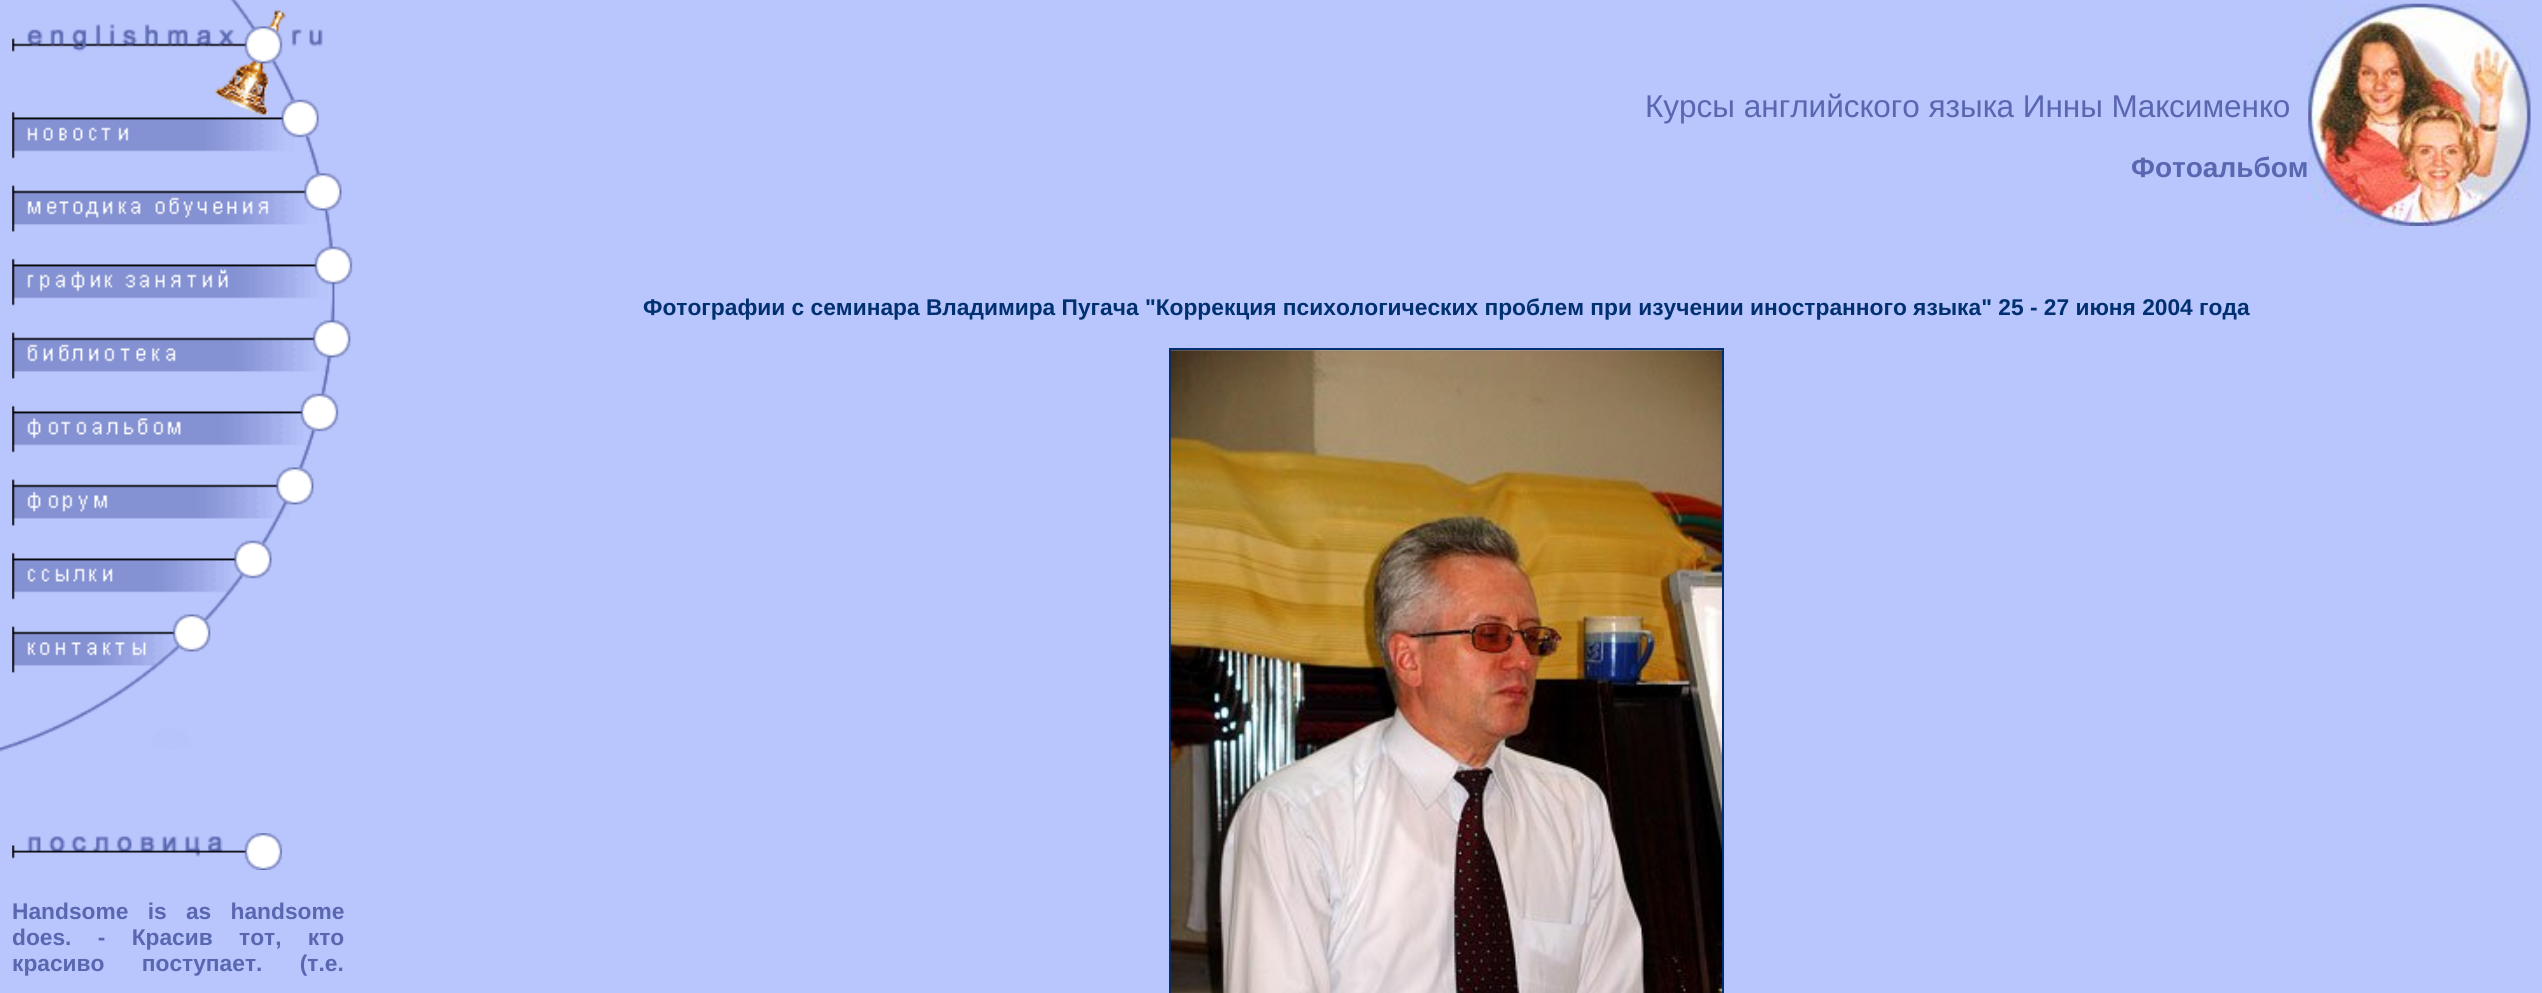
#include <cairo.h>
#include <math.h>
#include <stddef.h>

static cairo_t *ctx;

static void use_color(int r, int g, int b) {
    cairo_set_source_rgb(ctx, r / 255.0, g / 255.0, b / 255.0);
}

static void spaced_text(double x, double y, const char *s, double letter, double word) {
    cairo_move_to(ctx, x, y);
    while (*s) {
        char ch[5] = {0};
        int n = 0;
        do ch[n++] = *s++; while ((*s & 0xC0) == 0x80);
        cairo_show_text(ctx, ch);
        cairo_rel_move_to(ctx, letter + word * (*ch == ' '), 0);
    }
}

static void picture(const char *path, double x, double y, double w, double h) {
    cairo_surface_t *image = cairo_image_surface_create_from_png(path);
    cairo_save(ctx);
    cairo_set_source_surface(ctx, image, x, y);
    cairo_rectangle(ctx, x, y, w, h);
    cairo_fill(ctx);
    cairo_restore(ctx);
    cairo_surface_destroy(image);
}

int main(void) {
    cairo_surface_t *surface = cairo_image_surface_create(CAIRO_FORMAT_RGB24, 2542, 993);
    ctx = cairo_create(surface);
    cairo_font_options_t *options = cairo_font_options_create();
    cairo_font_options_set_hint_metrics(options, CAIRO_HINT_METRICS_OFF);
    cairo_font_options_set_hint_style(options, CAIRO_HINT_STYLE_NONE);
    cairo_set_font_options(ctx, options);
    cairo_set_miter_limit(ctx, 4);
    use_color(185, 197, 253);
    cairo_paint(ctx);
    cairo_select_font_face(ctx, "Liberation Sans", CAIRO_FONT_SLANT_NORMAL, CAIRO_FONT_WEIGHT_NORMAL);
    cairo_set_font_size(ctx, 31.5);
    use_color(88, 103, 176);
    cairo_move_to(ctx, 1645, 117);
    cairo_show_text(ctx, "Курсы английского языка Инны Максименко");
    picture("img1.png", 2308, 3, 223, 223);
    cairo_select_font_face(ctx, "Liberation Sans", CAIRO_FONT_SLANT_NORMAL, CAIRO_FONT_WEIGHT_BOLD);
    cairo_set_font_size(ctx, 28);
    cairo_move_to(ctx, 2131, 177);
    cairo_show_text(ctx, "Фотоальбом");
    cairo_set_font_size(ctx, 22.75);
    use_color(0, 48, 112);
    cairo_move_to(ctx, 643, 315);
    cairo_show_text(ctx, "Фотографии с семинара Владимира Пугача \"Коррекция психологических проблем при изучении иностранного языка\" 25 - 27 июня 2004 года");
    cairo_rectangle(ctx, 1170, 349, 553, 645);
    cairo_stroke(ctx);
    picture("img2.png", 1170, 350, 552, 643);
    picture("img3.png", 0, 743, 13, 9);
    picture("img4.png", 12, 0, 341, 749);
    picture("img5.png", 12, 833, 270, 37);
    use_color(88, 103, 176);
    spaced_text(12, 919, "Handsome is as handsome", 0, 13);
    spaced_text(12, 945, "does. - Красив тот, кто", 0, 20);
    spaced_text(12, 971, "красиво поступает. (т.е.", 0, 31);
    cairo_surface_write_to_png(surface, "result.png");
    cairo_font_options_destroy(options);
    cairo_destroy(ctx);
    cairo_surface_destroy(surface);
    return 0;
}
